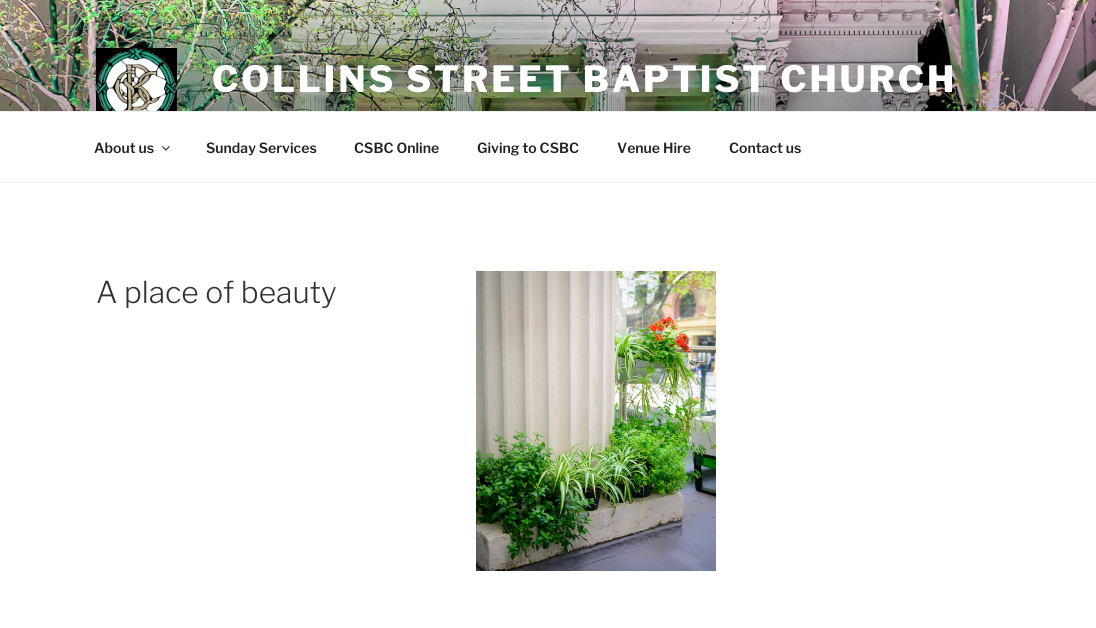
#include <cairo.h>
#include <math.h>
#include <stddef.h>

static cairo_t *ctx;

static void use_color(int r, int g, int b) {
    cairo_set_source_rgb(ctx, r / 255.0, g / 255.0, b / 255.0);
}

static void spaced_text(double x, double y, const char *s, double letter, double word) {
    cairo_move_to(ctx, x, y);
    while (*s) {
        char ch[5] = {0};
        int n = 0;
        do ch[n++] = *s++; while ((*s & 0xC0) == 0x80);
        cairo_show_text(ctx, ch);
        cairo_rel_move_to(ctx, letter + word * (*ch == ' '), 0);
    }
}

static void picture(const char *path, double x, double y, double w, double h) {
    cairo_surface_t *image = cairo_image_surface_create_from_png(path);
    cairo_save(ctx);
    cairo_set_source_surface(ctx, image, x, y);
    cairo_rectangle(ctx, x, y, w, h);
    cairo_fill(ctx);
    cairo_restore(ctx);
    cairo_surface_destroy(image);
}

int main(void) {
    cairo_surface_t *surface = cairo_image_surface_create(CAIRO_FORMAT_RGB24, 1096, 628);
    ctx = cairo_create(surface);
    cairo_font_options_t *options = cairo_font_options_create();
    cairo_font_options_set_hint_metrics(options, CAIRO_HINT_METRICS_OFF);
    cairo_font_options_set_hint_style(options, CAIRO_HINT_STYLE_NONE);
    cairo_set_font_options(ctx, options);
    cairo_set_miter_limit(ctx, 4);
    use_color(255, 255, 255);
    cairo_paint(ctx);
    picture("img1.png", 0, 0, 1096, 111);
    picture("img2.png", 96, 48, 81, 63);
    cairo_select_font_face(ctx, "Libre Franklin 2 Thin", CAIRO_FONT_SLANT_NORMAL, CAIRO_FONT_WEIGHT_NORMAL);
    cairo_set_font_size(ctx, 36);
    use_color(255, 255, 255);
    spaced_text(212, 92, "COLLINS STREET BAPTIST CHURCH", 2.9, 0);
    use_color(238, 238, 238);
    cairo_rectangle(ctx, 0, 111, 1096, 1);
    cairo_fill(ctx);
    cairo_rectangle(ctx, 0, 182, 1096, 1);
    cairo_fill(ctx);
    cairo_select_font_face(ctx, "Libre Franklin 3 Thin", CAIRO_FONT_SLANT_NORMAL, CAIRO_FONT_WEIGHT_NORMAL);
    cairo_set_font_size(ctx, 14);
    use_color(34, 34, 34);
    cairo_move_to(ctx, 94, 153);
    cairo_show_text(ctx, "About us");
    picture("img3.png", 162, 146, 8, 5);
    cairo_move_to(ctx, 206, 153);
    cairo_show_text(ctx, "Sunday Services");
    cairo_move_to(ctx, 354, 153);
    cairo_show_text(ctx, "CSBC Online");
    cairo_move_to(ctx, 477, 153);
    cairo_show_text(ctx, "Giving to CSBC");
    cairo_move_to(ctx, 617, 153);
    cairo_show_text(ctx, "Venue Hire");
    cairo_move_to(ctx, 729, 153);
    cairo_show_text(ctx, "Contact us");
    cairo_select_font_face(ctx, "Libre Franklin Thin", CAIRO_FONT_SLANT_NORMAL, CAIRO_FONT_WEIGHT_NORMAL);
    cairo_set_font_size(ctx, 30);
    use_color(51, 51, 51);
    cairo_move_to(ctx, 96, 303);
    cairo_show_text(ctx, "A place of beauty");
    picture("img4.png", 476, 271, 240, 300);
    cairo_surface_write_to_png(surface, "result.png");
    cairo_font_options_destroy(options);
    cairo_destroy(ctx);
    cairo_surface_destroy(surface);
    return 0;
}
